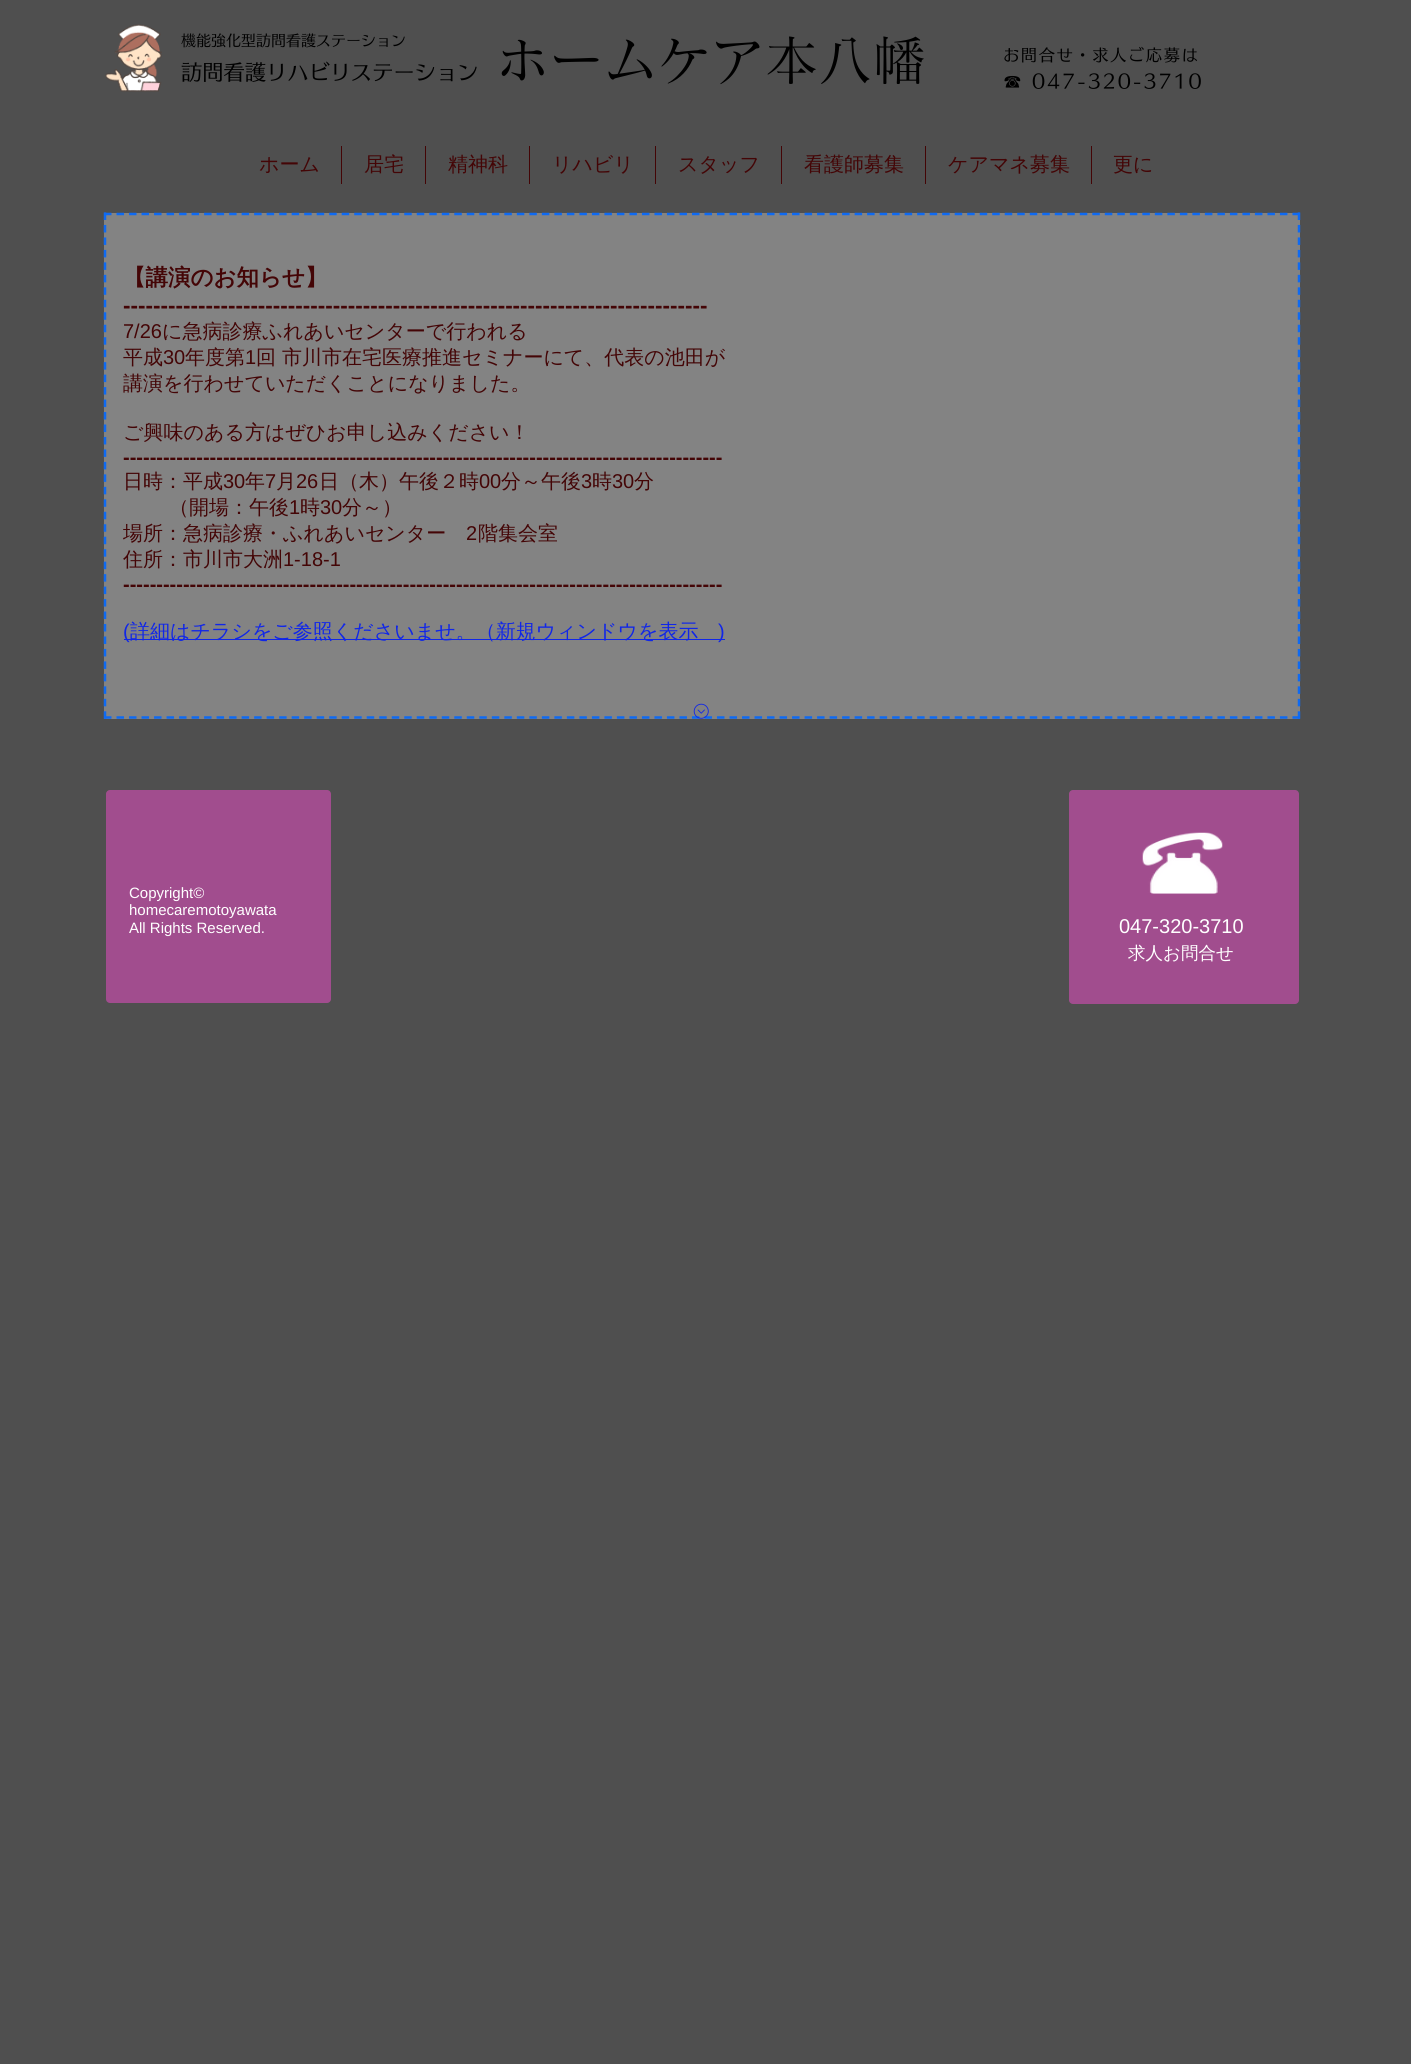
#include <cairo.h>
#include <math.h>
#include <stddef.h>

static cairo_t *ctx;

static void use_color(int r, int g, int b) {
    cairo_set_source_rgb(ctx, r / 255.0, g / 255.0, b / 255.0);
}

static void spaced_text(double x, double y, const char *s, double letter, double word) {
    cairo_move_to(ctx, x, y);
    while (*s) {
        char ch[5] = {0};
        int n = 0;
        do ch[n++] = *s++; while ((*s & 0xC0) == 0x80);
        cairo_show_text(ctx, ch);
        cairo_rel_move_to(ctx, letter + word * (*ch == ' '), 0);
    }
}

static void round_rect(double x, double y, double w, double h, double r) {
    cairo_new_sub_path(ctx);
    cairo_arc(ctx, x + w - r, y + h - r, r, 0, M_PI / 2);
    cairo_arc(ctx, x + r, y + h - r, r, M_PI / 2, M_PI);
    cairo_arc(ctx, x + r, y + r, r, M_PI, 1.5 * M_PI);
    cairo_arc(ctx, x + w - r, y + r, r, 1.5 * M_PI, 2 * M_PI);
    cairo_close_path(ctx);
}

static void picture(const char *path, double x, double y, double w, double h) {
    cairo_surface_t *image = cairo_image_surface_create_from_png(path);
    cairo_save(ctx);
    cairo_set_source_surface(ctx, image, x, y);
    cairo_rectangle(ctx, x, y, w, h);
    cairo_fill(ctx);
    cairo_restore(ctx);
    cairo_surface_destroy(image);
}

int main(void) {
    cairo_surface_t *surface = cairo_image_surface_create(CAIRO_FORMAT_RGB24, 1411, 2064);
    ctx = cairo_create(surface);
    cairo_font_options_t *options = cairo_font_options_create();
    cairo_font_options_set_hint_metrics(options, CAIRO_HINT_METRICS_OFF);
    cairo_font_options_set_hint_style(options, CAIRO_HINT_STYLE_NONE);
    cairo_set_font_options(ctx, options);
    cairo_set_miter_limit(ctx, 4);
    use_color(79, 79, 79);
    cairo_paint(ctx);
    picture("img1.png", 105, 24, 57, 68);
    cairo_select_font_face(ctx, "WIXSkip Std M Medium", CAIRO_FONT_SLANT_NORMAL, CAIRO_FONT_WEIGHT_NORMAL);
    cairo_set_font_size(ctx, 15);
    use_color(0, 0, 0);
    cairo_move_to(ctx, 181, 46);
    cairo_show_text(ctx, "機能強化型訪問看護ステーション");
    cairo_select_font_face(ctx, "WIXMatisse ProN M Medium", CAIRO_FONT_SLANT_NORMAL, CAIRO_FONT_WEIGHT_NORMAL);
    cairo_set_font_size(ctx, 53.75);
    cairo_move_to(ctx, 496, 80);
    cairo_show_text(ctx, "ホームケア本八幡");
    cairo_select_font_face(ctx, "WIXSkip Std M Medium", CAIRO_FONT_SLANT_NORMAL, CAIRO_FONT_WEIGHT_NORMAL);
    cairo_set_font_size(ctx, 16.25);
    spaced_text(1003, 61, "お問合せ・求人ご応募は", 1.6, 0);
    cairo_select_font_face(ctx, "WenQuanYi Zen Hei Medium", CAIRO_FONT_SLANT_NORMAL, CAIRO_FONT_WEIGHT_NORMAL);
    cairo_set_font_size(ctx, 18.75);
    spaced_text(1003, 88, "☎", 1.9, 0);
    cairo_select_font_face(ctx, "WIXSkip Std M Medium", CAIRO_FONT_SLANT_NORMAL, CAIRO_FONT_WEIGHT_NORMAL);
    spaced_text(1032, 88, "047-320-3710", 1.9, 0);
    cairo_set_font_size(ctx, 21.25);
    cairo_move_to(ctx, 181, 80);
    cairo_show_text(ctx, "訪問看護リハビリステーション");
    cairo_select_font_face(ctx, "WenQuanYi Zen Hei Medium", CAIRO_FONT_SLANT_NORMAL, CAIRO_FONT_WEIGHT_NORMAL);
    cairo_set_font_size(ctx, 20);
    use_color(68, 5, 6);
    cairo_move_to(ctx, 259, 171);
    cairo_show_text(ctx, "ホーム");
    cairo_rectangle(ctx, 341, 146, 1, 38);
    cairo_fill(ctx);
    cairo_move_to(ctx, 364, 171);
    cairo_show_text(ctx, "居宅");
    cairo_rectangle(ctx, 425, 146, 1, 38);
    cairo_fill(ctx);
    cairo_move_to(ctx, 448, 171);
    cairo_show_text(ctx, "精神科");
    cairo_rectangle(ctx, 529, 146, 1, 38);
    cairo_fill(ctx);
    cairo_move_to(ctx, 552, 171);
    cairo_show_text(ctx, "リハビリ");
    cairo_rectangle(ctx, 655, 146, 1, 38);
    cairo_fill(ctx);
    cairo_move_to(ctx, 678, 171);
    cairo_show_text(ctx, "スタッフ");
    cairo_rectangle(ctx, 781, 146, 1, 38);
    cairo_fill(ctx);
    cairo_move_to(ctx, 804, 171);
    cairo_show_text(ctx, "看護師募集");
    cairo_rectangle(ctx, 925, 146, 1, 38);
    cairo_fill(ctx);
    cairo_move_to(ctx, 948, 171);
    cairo_show_text(ctx, "ケアマネ募集");
    cairo_rectangle(ctx, 1091, 146, 1, 38);
    cairo_fill(ctx);
    cairo_move_to(ctx, 1113, 171);
    cairo_show_text(ctx, "更に");
    use_color(131, 131, 131);
    cairo_rectangle(ctx, 104, 213, 1196, 506);
    cairo_fill(ctx);
    cairo_new_path(ctx);
    cairo_move_to(ctx, 104, 214);
    cairo_line_to(ctx, 1300, 214);
    use_color(15, 106, 242);
    cairo_set_line_width(ctx, 2.5);
    cairo_set_dash(ctx, (double[]){7.5, 5.01}, 2, 0);
    cairo_stroke(ctx);
    cairo_new_path(ctx);
    cairo_move_to(ctx, 1299, 212.5);
    cairo_line_to(ctx, 1299, 719);
    cairo_set_dash(ctx, (double[]){7.5, 4.97}, 2, 0);
    cairo_stroke(ctx);
    cairo_new_path(ctx);
    cairo_move_to(ctx, 104, 717.5);
    cairo_line_to(ctx, 1300, 717.5);
    cairo_set_dash(ctx, (double[]){7.5, 5.01}, 2, 0);
    cairo_stroke(ctx);
    cairo_new_path(ctx);
    cairo_move_to(ctx, 105, 212.5);
    cairo_line_to(ctx, 105, 719);
    cairo_set_dash(ctx, (double[]){7.5, 4.97}, 2, 0);
    cairo_stroke(ctx);
    cairo_select_font_face(ctx, "WenQuanYi Zen Hei", CAIRO_FONT_SLANT_NORMAL, CAIRO_FONT_WEIGHT_BOLD);
    cairo_set_font_size(ctx, 22.5);
    use_color(68, 5, 6);
    cairo_move_to(ctx, 123, 285);
    cairo_show_text(ctx, "【講演のお知らせ】");
    cairo_select_font_face(ctx, "Liberation Sans", CAIRO_FONT_SLANT_NORMAL, CAIRO_FONT_WEIGHT_BOLD);
    cairo_move_to(ctx, 123, 313);
    cairo_show_text(ctx, "------------------------------------------------------------------------------");
    cairo_select_font_face(ctx, "Liberation Sans", CAIRO_FONT_SLANT_NORMAL, CAIRO_FONT_WEIGHT_NORMAL);
    cairo_set_font_size(ctx, 20);
    cairo_move_to(ctx, 123, 338);
    cairo_show_text(ctx, "7/26");
    cairo_select_font_face(ctx, "WenQuanYi Zen Hei Medium", CAIRO_FONT_SLANT_NORMAL, CAIRO_FONT_WEIGHT_NORMAL);
    cairo_move_to(ctx, 162, 338);
    cairo_show_text(ctx, "に急病診療ふれあいセンターで行われる");
    cairo_move_to(ctx, 123, 364);
    cairo_show_text(ctx, "平成");
    cairo_select_font_face(ctx, "Liberation Sans", CAIRO_FONT_SLANT_NORMAL, CAIRO_FONT_WEIGHT_NORMAL);
    cairo_move_to(ctx, 163, 364);
    cairo_show_text(ctx, "30");
    cairo_select_font_face(ctx, "WenQuanYi Zen Hei Medium", CAIRO_FONT_SLANT_NORMAL, CAIRO_FONT_WEIGHT_NORMAL);
    cairo_move_to(ctx, 185, 364);
    cairo_show_text(ctx, "年度第");
    cairo_select_font_face(ctx, "Liberation Sans", CAIRO_FONT_SLANT_NORMAL, CAIRO_FONT_WEIGHT_NORMAL);
    cairo_move_to(ctx, 245, 364);
    cairo_show_text(ctx, "1");
    cairo_select_font_face(ctx, "WenQuanYi Zen Hei Medium", CAIRO_FONT_SLANT_NORMAL, CAIRO_FONT_WEIGHT_NORMAL);
    cairo_move_to(ctx, 256, 364);
    cairo_show_text(ctx, "回 市川市在宅医療推進セミナーにて、代表の池田が");
    cairo_move_to(ctx, 123, 390);
    cairo_show_text(ctx, "講演を行わせていただくことになりました。");
    cairo_move_to(ctx, 123, 439);
    cairo_show_text(ctx, "ご興味のある方はぜひお申し込みください！");
    cairo_select_font_face(ctx, "Liberation Sans", CAIRO_FONT_SLANT_NORMAL, CAIRO_FONT_WEIGHT_BOLD);
    cairo_move_to(ctx, 123, 464);
    cairo_show_text(ctx, "------------------------------------------------------------------------------------------");
    cairo_select_font_face(ctx, "WenQuanYi Zen Hei Medium", CAIRO_FONT_SLANT_NORMAL, CAIRO_FONT_WEIGHT_NORMAL);
    cairo_move_to(ctx, 123, 488);
    cairo_show_text(ctx, "日時：平成");
    cairo_select_font_face(ctx, "Liberation Sans", CAIRO_FONT_SLANT_NORMAL, CAIRO_FONT_WEIGHT_NORMAL);
    cairo_move_to(ctx, 223, 488);
    cairo_show_text(ctx, "30");
    cairo_select_font_face(ctx, "WenQuanYi Zen Hei Medium", CAIRO_FONT_SLANT_NORMAL, CAIRO_FONT_WEIGHT_NORMAL);
    cairo_move_to(ctx, 245, 488);
    cairo_show_text(ctx, "年");
    cairo_select_font_face(ctx, "Liberation Sans", CAIRO_FONT_SLANT_NORMAL, CAIRO_FONT_WEIGHT_NORMAL);
    cairo_move_to(ctx, 265, 488);
    cairo_show_text(ctx, "7");
    cairo_select_font_face(ctx, "WenQuanYi Zen Hei Medium", CAIRO_FONT_SLANT_NORMAL, CAIRO_FONT_WEIGHT_NORMAL);
    cairo_move_to(ctx, 276, 488);
    cairo_show_text(ctx, "月");
    cairo_select_font_face(ctx, "Liberation Sans", CAIRO_FONT_SLANT_NORMAL, CAIRO_FONT_WEIGHT_NORMAL);
    cairo_move_to(ctx, 296, 488);
    cairo_show_text(ctx, "26");
    cairo_select_font_face(ctx, "WenQuanYi Zen Hei Medium", CAIRO_FONT_SLANT_NORMAL, CAIRO_FONT_WEIGHT_NORMAL);
    cairo_move_to(ctx, 319, 488);
    cairo_show_text(ctx, "日（木）午後２時");
    cairo_select_font_face(ctx, "Liberation Sans", CAIRO_FONT_SLANT_NORMAL, CAIRO_FONT_WEIGHT_NORMAL);
    cairo_move_to(ctx, 479, 488);
    cairo_show_text(ctx, "00");
    cairo_select_font_face(ctx, "WenQuanYi Zen Hei Medium", CAIRO_FONT_SLANT_NORMAL, CAIRO_FONT_WEIGHT_NORMAL);
    cairo_move_to(ctx, 501, 488);
    cairo_show_text(ctx, "分～午後");
    cairo_select_font_face(ctx, "Liberation Sans", CAIRO_FONT_SLANT_NORMAL, CAIRO_FONT_WEIGHT_NORMAL);
    cairo_move_to(ctx, 581, 488);
    cairo_show_text(ctx, "3");
    cairo_select_font_face(ctx, "WenQuanYi Zen Hei Medium", CAIRO_FONT_SLANT_NORMAL, CAIRO_FONT_WEIGHT_NORMAL);
    cairo_move_to(ctx, 592, 488);
    cairo_show_text(ctx, "時");
    cairo_select_font_face(ctx, "Liberation Sans", CAIRO_FONT_SLANT_NORMAL, CAIRO_FONT_WEIGHT_NORMAL);
    cairo_move_to(ctx, 612, 488);
    cairo_show_text(ctx, "30");
    cairo_select_font_face(ctx, "WenQuanYi Zen Hei Medium", CAIRO_FONT_SLANT_NORMAL, CAIRO_FONT_WEIGHT_NORMAL);
    cairo_move_to(ctx, 634, 488);
    cairo_show_text(ctx, "分");
    cairo_move_to(ctx, 169, 514);
    cairo_show_text(ctx, "（開場：午後");
    cairo_select_font_face(ctx, "Liberation Sans", CAIRO_FONT_SLANT_NORMAL, CAIRO_FONT_WEIGHT_NORMAL);
    cairo_move_to(ctx, 289, 514);
    cairo_show_text(ctx, "1");
    cairo_select_font_face(ctx, "WenQuanYi Zen Hei Medium", CAIRO_FONT_SLANT_NORMAL, CAIRO_FONT_WEIGHT_NORMAL);
    cairo_move_to(ctx, 300, 514);
    cairo_show_text(ctx, "時");
    cairo_select_font_face(ctx, "Liberation Sans", CAIRO_FONT_SLANT_NORMAL, CAIRO_FONT_WEIGHT_NORMAL);
    cairo_move_to(ctx, 320, 514);
    cairo_show_text(ctx, "30");
    cairo_select_font_face(ctx, "WenQuanYi Zen Hei Medium", CAIRO_FONT_SLANT_NORMAL, CAIRO_FONT_WEIGHT_NORMAL);
    cairo_move_to(ctx, 342, 514);
    cairo_show_text(ctx, "分～）");
    cairo_move_to(ctx, 123, 540);
    cairo_show_text(ctx, "場所：急病診療・ふれあいセンター");
    cairo_select_font_face(ctx, "Liberation Sans", CAIRO_FONT_SLANT_NORMAL, CAIRO_FONT_WEIGHT_NORMAL);
    cairo_move_to(ctx, 466, 540);
    cairo_show_text(ctx, "2");
    cairo_select_font_face(ctx, "WenQuanYi Zen Hei Medium", CAIRO_FONT_SLANT_NORMAL, CAIRO_FONT_WEIGHT_NORMAL);
    cairo_move_to(ctx, 478, 540);
    cairo_show_text(ctx, "階集会室");
    cairo_move_to(ctx, 123, 566);
    cairo_show_text(ctx, "住所：市川市大洲");
    cairo_select_font_face(ctx, "Liberation Sans", CAIRO_FONT_SLANT_NORMAL, CAIRO_FONT_WEIGHT_NORMAL);
    cairo_move_to(ctx, 283, 566);
    cairo_show_text(ctx, "1-18-1");
    cairo_select_font_face(ctx, "Liberation Sans", CAIRO_FONT_SLANT_NORMAL, CAIRO_FONT_WEIGHT_BOLD);
    cairo_move_to(ctx, 123, 591);
    cairo_show_text(ctx, "------------------------------------------------------------------------------------------");
    use_color(16, 38, 232);
    cairo_rectangle(ctx, 124, 639, 601, 1);
    cairo_fill(ctx);
    cairo_select_font_face(ctx, "Liberation Sans", CAIRO_FONT_SLANT_NORMAL, CAIRO_FONT_WEIGHT_NORMAL);
    cairo_move_to(ctx, 123, 638);
    cairo_show_text(ctx, "(");
    cairo_select_font_face(ctx, "WenQuanYi Zen Hei Medium", CAIRO_FONT_SLANT_NORMAL, CAIRO_FONT_WEIGHT_NORMAL);
    cairo_move_to(ctx, 130, 638);
    cairo_show_text(ctx, "詳細はチラシをご参照くださいませ。（新規ウィンドウを表示");
    cairo_select_font_face(ctx, "Liberation Sans", CAIRO_FONT_SLANT_NORMAL, CAIRO_FONT_WEIGHT_NORMAL);
    cairo_move_to(ctx, 718, 638);
    cairo_show_text(ctx, ")");
    picture("img2.png", 693, 703, 16, 16);
    use_color(161, 77, 142);
    round_rect(106, 790, 225, 213, 4);
    cairo_fill(ctx);
    cairo_set_font_size(ctx, 15);
    use_color(255, 255, 255);
    cairo_move_to(ctx, 129, 898);
    cairo_show_text(ctx, "Copyright©");
    cairo_move_to(ctx, 129, 915);
    cairo_show_text(ctx, "homecaremotoyawata");
    cairo_move_to(ctx, 129, 933);
    cairo_show_text(ctx, "All Rights Reserved.");
    use_color(161, 77, 142);
    round_rect(1069, 790, 230, 214, 4);
    cairo_fill(ctx);
    picture("img3.png", 1142, 832, 81, 62);
    cairo_set_font_size(ctx, 20);
    use_color(255, 255, 255);
    cairo_move_to(ctx, 1119, 933);
    cairo_show_text(ctx, "047-320-3710");
    cairo_select_font_face(ctx, "WenQuanYi Zen Hei Medium", CAIRO_FONT_SLANT_NORMAL, CAIRO_FONT_WEIGHT_NORMAL);
    cairo_set_font_size(ctx, 17.5);
    cairo_move_to(ctx, 1128, 959);
    cairo_show_text(ctx, "求人お問合せ");
    cairo_surface_write_to_png(surface, "result.png");
    cairo_font_options_destroy(options);
    cairo_destroy(ctx);
    cairo_surface_destroy(surface);
    return 0;
}
